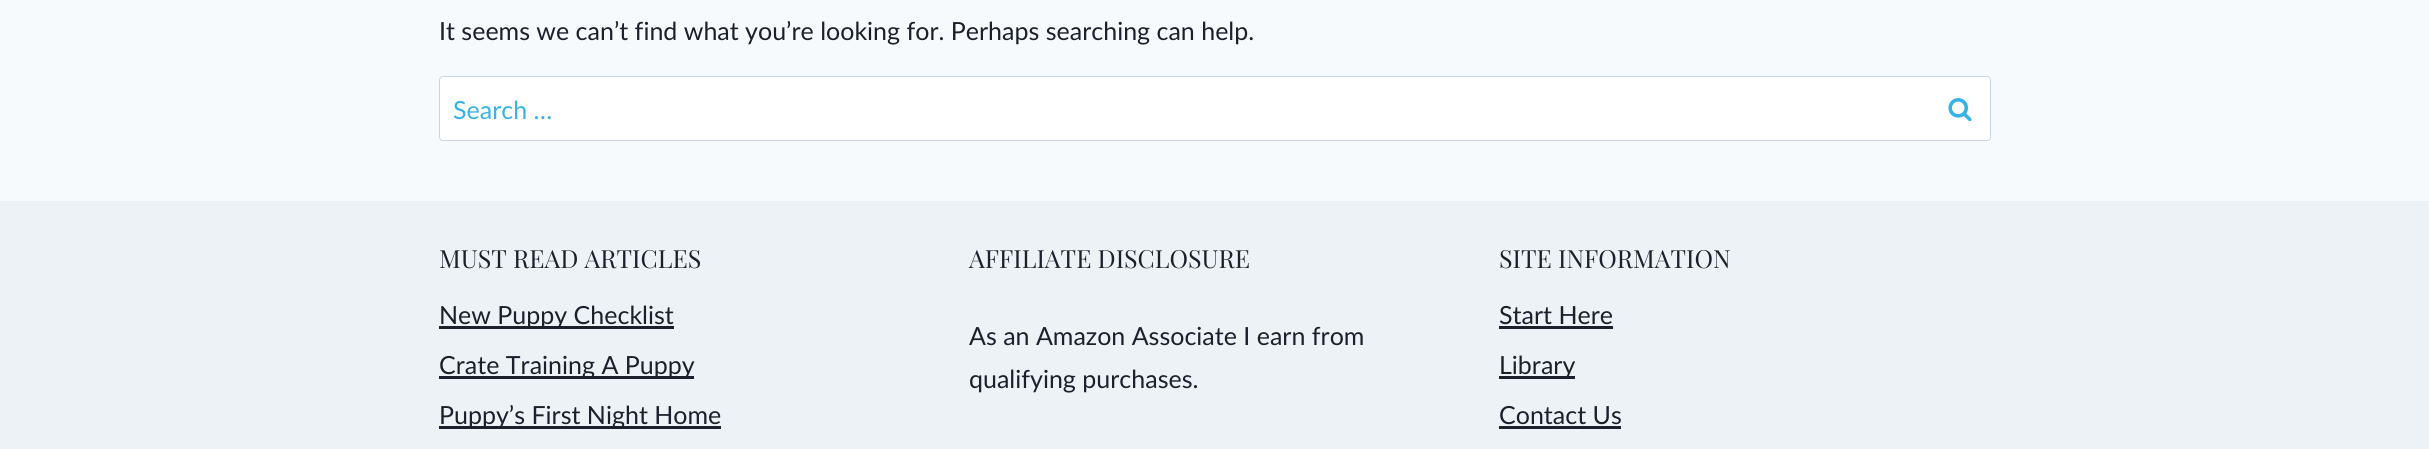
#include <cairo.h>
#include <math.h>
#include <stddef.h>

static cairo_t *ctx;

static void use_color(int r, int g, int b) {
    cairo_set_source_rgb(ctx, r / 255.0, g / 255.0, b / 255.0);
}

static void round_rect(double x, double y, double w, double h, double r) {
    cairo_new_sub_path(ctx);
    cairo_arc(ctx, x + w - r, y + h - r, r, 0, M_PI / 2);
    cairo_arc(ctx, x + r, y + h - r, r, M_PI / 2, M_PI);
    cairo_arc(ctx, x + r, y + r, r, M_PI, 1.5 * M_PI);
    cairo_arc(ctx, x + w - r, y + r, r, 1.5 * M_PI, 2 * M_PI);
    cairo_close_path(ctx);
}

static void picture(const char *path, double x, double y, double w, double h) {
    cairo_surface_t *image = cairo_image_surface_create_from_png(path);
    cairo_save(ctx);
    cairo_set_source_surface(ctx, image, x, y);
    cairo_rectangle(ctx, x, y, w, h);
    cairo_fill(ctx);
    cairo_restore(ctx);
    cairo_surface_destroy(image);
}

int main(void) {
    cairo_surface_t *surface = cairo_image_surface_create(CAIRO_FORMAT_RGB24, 2429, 449);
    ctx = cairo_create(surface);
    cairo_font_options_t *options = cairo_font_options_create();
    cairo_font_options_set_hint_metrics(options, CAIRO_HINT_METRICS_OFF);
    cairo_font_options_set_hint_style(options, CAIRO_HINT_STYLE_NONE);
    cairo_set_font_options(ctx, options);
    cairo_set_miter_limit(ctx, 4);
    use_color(247, 250, 252);
    cairo_paint(ctx);
    cairo_select_font_face(ctx, "Lato", CAIRO_FONT_SLANT_NORMAL, CAIRO_FONT_WEIGHT_NORMAL);
    cairo_set_font_size(ctx, 25);
    use_color(26, 32, 44);
    cairo_move_to(ctx, 439, 40);
    cairo_show_text(ctx, "It seems we can’t find what you’re looking for. Perhaps searching can help.");
    use_color(255, 255, 255);
    round_rect(439.5, 76.5, 1551, 64, 3.5);
    cairo_fill_preserve(ctx);
    use_color(203, 213, 224);
    cairo_set_line_width(ctx, 1);
    cairo_stroke(ctx);
    use_color(56, 179, 231);
    cairo_move_to(ctx, 453, 119);
    cairo_show_text(ctx, "Search …");
    picture("img1.png", 1948, 98, 24, 23);
    use_color(237, 242, 247);
    cairo_rectangle(ctx, 0, 201, 2429, 248);
    cairo_fill(ctx);
    cairo_select_font_face(ctx, "Playfair Display", CAIRO_FONT_SLANT_NORMAL, CAIRO_FONT_WEIGHT_NORMAL);
    use_color(26, 32, 44);
    cairo_move_to(ctx, 439, 268);
    cairo_show_text(ctx, "MUST READ ARTICLES");
    cairo_rectangle(ctx, 439, 326, 235, 3);
    cairo_fill(ctx);
    cairo_select_font_face(ctx, "Lato", CAIRO_FONT_SLANT_NORMAL, CAIRO_FONT_WEIGHT_NORMAL);
    cairo_move_to(ctx, 439, 324);
    cairo_show_text(ctx, "New Puppy Checklist");
    cairo_rectangle(ctx, 439, 376, 255, 3);
    cairo_fill(ctx);
    cairo_move_to(ctx, 439, 374);
    cairo_show_text(ctx, "Crate Training A Puppy");
    cairo_rectangle(ctx, 439, 426, 282, 3);
    cairo_fill(ctx);
    cairo_move_to(ctx, 439, 424);
    cairo_show_text(ctx, "Puppy’s First Night Home");
    cairo_select_font_face(ctx, "Playfair Display", CAIRO_FONT_SLANT_NORMAL, CAIRO_FONT_WEIGHT_NORMAL);
    cairo_move_to(ctx, 969, 268);
    cairo_show_text(ctx, "AFFILIATE DISCLOSURE");
    cairo_select_font_face(ctx, "Lato", CAIRO_FONT_SLANT_NORMAL, CAIRO_FONT_WEIGHT_NORMAL);
    cairo_move_to(ctx, 969, 345);
    cairo_show_text(ctx, "As an Amazon Associate I earn from");
    cairo_move_to(ctx, 969, 388);
    cairo_show_text(ctx, "qualifying purchases.");
    cairo_select_font_face(ctx, "Playfair Display", CAIRO_FONT_SLANT_NORMAL, CAIRO_FONT_WEIGHT_NORMAL);
    cairo_move_to(ctx, 1499, 268);
    cairo_show_text(ctx, "SITE INFORMATION");
    cairo_select_font_face(ctx, "Lato", CAIRO_FONT_SLANT_NORMAL, CAIRO_FONT_WEIGHT_NORMAL);
    cairo_move_to(ctx, 1499, 324);
    cairo_show_text(ctx, "Start Here");
    cairo_rectangle(ctx, 1499, 326, 114, 3);
    cairo_fill(ctx);
    cairo_rectangle(ctx, 1499, 376, 76, 3);
    cairo_fill(ctx);
    cairo_move_to(ctx, 1499, 374);
    cairo_show_text(ctx, "Library");
    cairo_move_to(ctx, 1499, 424);
    cairo_show_text(ctx, "Contact Us");
    cairo_rectangle(ctx, 1499, 426, 122, 3);
    cairo_fill(ctx);
    cairo_surface_write_to_png(surface, "result.png");
    cairo_font_options_destroy(options);
    cairo_destroy(ctx);
    cairo_surface_destroy(surface);
    return 0;
}
